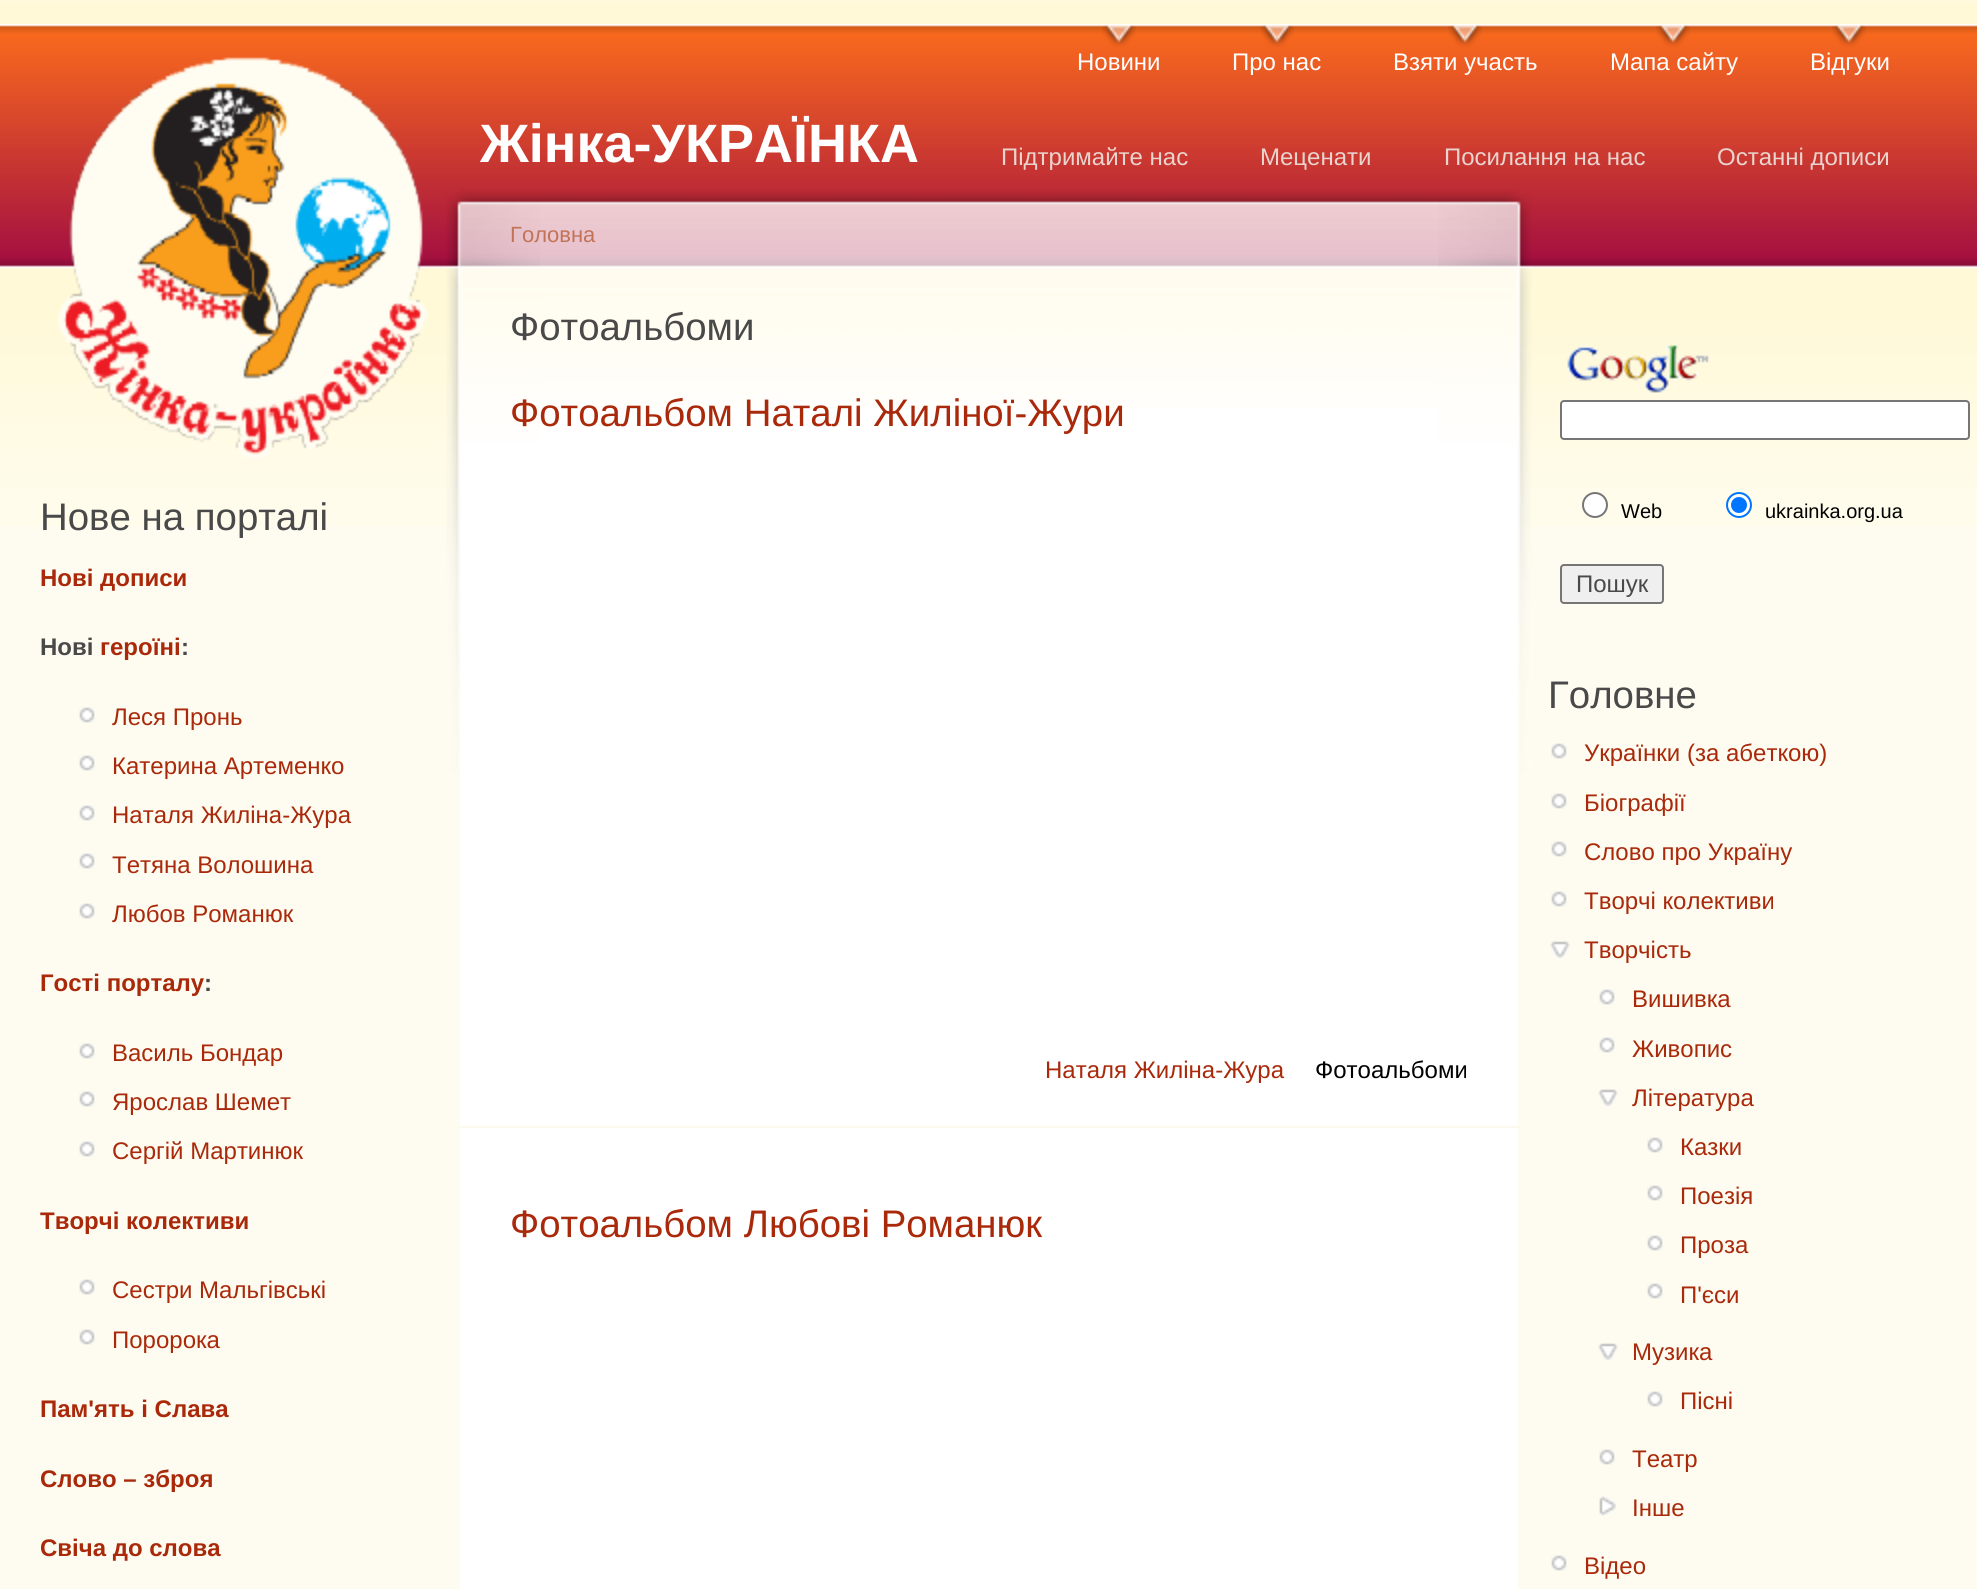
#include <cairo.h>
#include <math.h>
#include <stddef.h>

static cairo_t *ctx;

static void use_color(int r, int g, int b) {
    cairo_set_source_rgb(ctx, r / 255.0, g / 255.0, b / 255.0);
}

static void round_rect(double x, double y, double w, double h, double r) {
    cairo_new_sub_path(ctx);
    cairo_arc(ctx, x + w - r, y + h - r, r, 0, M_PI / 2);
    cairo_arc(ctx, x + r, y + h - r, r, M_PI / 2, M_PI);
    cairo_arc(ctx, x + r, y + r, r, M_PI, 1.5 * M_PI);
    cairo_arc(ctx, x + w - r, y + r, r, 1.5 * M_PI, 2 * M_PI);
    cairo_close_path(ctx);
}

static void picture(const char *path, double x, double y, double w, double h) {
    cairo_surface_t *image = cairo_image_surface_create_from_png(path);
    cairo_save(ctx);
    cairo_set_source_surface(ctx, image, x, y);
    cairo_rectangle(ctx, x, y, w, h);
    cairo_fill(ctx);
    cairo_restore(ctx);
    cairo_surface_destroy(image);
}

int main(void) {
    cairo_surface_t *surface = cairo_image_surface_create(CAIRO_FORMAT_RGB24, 1977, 1589);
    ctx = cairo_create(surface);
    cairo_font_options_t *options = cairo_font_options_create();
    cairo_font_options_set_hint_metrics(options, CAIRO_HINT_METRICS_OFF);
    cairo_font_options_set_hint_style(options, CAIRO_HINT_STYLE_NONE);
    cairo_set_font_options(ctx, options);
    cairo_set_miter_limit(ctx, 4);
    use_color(254, 252, 241);
    cairo_paint(ctx);
    use_color(255, 250, 221);
    cairo_rectangle(ctx, 0, 0, 1977, 3);
    cairo_fill(ctx);
    use_color(255, 249, 216);
    cairo_rectangle(ctx, 0, 3, 1977, 21);
    cairo_fill(ctx);
    picture("img1.png", 0, 24, 1977, 502);
    picture("img2.png", 1102, 25, 34, 22);
    cairo_select_font_face(ctx, "Liberation Sans", CAIRO_FONT_SLANT_NORMAL, CAIRO_FONT_WEIGHT_NORMAL);
    cairo_set_font_size(ctx, 24);
    use_color(255, 255, 255);
    cairo_move_to(ctx, 1077, 70);
    cairo_show_text(ctx, "Новини");
    picture("img2.png", 1260, 25, 34, 22);
    cairo_move_to(ctx, 1232, 70);
    cairo_show_text(ctx, "Про нас");
    picture("img2.png", 1448, 25, 34, 22);
    cairo_move_to(ctx, 1393, 70);
    cairo_show_text(ctx, "Взяти участь");
    picture("img2.png", 1656, 25, 34, 22);
    cairo_move_to(ctx, 1610, 70);
    cairo_show_text(ctx, "Мапа сайту");
    picture("img2.png", 1832, 25, 34, 22);
    cairo_move_to(ctx, 1810, 70);
    cairo_show_text(ctx, "Відгуки");
    picture("img3.png", 57, 57, 372, 402);
    cairo_select_font_face(ctx, "Liberation Sans", CAIRO_FONT_SLANT_NORMAL, CAIRO_FONT_WEIGHT_BOLD);
    cairo_set_font_size(ctx, 54);
    cairo_move_to(ctx, 480, 162);
    cairo_show_text(ctx, "Жінка-УКРАЇНКА");
    cairo_select_font_face(ctx, "Liberation Sans", CAIRO_FONT_SLANT_NORMAL, CAIRO_FONT_WEIGHT_NORMAL);
    cairo_set_font_size(ctx, 24);
    use_color(234, 212, 206);
    cairo_move_to(ctx, 1001, 165);
    cairo_show_text(ctx, "Підтримайте нас");
    cairo_move_to(ctx, 1260, 165);
    cairo_show_text(ctx, "Меценати");
    cairo_move_to(ctx, 1444, 165);
    cairo_show_text(ctx, "Посилання на нас");
    cairo_move_to(ctx, 1717, 165);
    cairo_show_text(ctx, "Останні дописи");
    cairo_set_font_size(ctx, 38.4);
    use_color(73, 73, 73);
    cairo_move_to(ctx, 40, 530);
    cairo_show_text(ctx, "Нове на порталі");
    cairo_select_font_face(ctx, "Liberation Sans", CAIRO_FONT_SLANT_NORMAL, CAIRO_FONT_WEIGHT_BOLD);
    cairo_set_font_size(ctx, 24);
    use_color(169, 41, 10);
    cairo_move_to(ctx, 40, 586);
    cairo_show_text(ctx, "Нові дописи");
    use_color(73, 73, 73);
    cairo_move_to(ctx, 40, 655);
    cairo_show_text(ctx, "Нові");
    use_color(169, 41, 10);
    cairo_move_to(ctx, 100, 655);
    cairo_show_text(ctx, "героїні");
    use_color(73, 73, 73);
    cairo_move_to(ctx, 181, 655);
    cairo_show_text(ctx, ":");
    picture("img4.png", 79, 707, 16, 16);
    cairo_select_font_face(ctx, "Liberation Sans", CAIRO_FONT_SLANT_NORMAL, CAIRO_FONT_WEIGHT_NORMAL);
    use_color(169, 41, 10);
    cairo_move_to(ctx, 112, 725);
    cairo_show_text(ctx, "Леся Пронь");
    picture("img4.png", 79, 755, 16, 16);
    cairo_move_to(ctx, 112, 774);
    cairo_show_text(ctx, "Катерина Артеменко");
    picture("img4.png", 79, 805, 16, 16);
    cairo_move_to(ctx, 112, 823);
    cairo_show_text(ctx, "Наталя Жиліна-Жура");
    picture("img4.png", 79, 853, 16, 16);
    cairo_move_to(ctx, 112, 873);
    cairo_show_text(ctx, "Тетяна Волошина");
    picture("img4.png", 79, 903, 16, 16);
    cairo_move_to(ctx, 112, 922);
    cairo_show_text(ctx, "Любов Романюк");
    cairo_select_font_face(ctx, "Liberation Sans", CAIRO_FONT_SLANT_NORMAL, CAIRO_FONT_WEIGHT_BOLD);
    cairo_move_to(ctx, 40, 991);
    cairo_show_text(ctx, "Гості порталу");
    use_color(73, 73, 73);
    cairo_move_to(ctx, 204, 991);
    cairo_show_text(ctx, ":");
    picture("img4.png", 79, 1043, 16, 16);
    cairo_select_font_face(ctx, "Liberation Sans", CAIRO_FONT_SLANT_NORMAL, CAIRO_FONT_WEIGHT_NORMAL);
    use_color(169, 41, 10);
    cairo_move_to(ctx, 112, 1061);
    cairo_show_text(ctx, "Василь Бондар");
    picture("img4.png", 79, 1091, 16, 16);
    cairo_move_to(ctx, 112, 1110);
    cairo_show_text(ctx, "Ярослав Шемет");
    picture("img4.png", 79, 1141, 16, 16);
    cairo_move_to(ctx, 112, 1159);
    cairo_show_text(ctx, "Сергій Мартинюк");
    cairo_select_font_face(ctx, "Liberation Sans", CAIRO_FONT_SLANT_NORMAL, CAIRO_FONT_WEIGHT_BOLD);
    cairo_move_to(ctx, 40, 1229);
    cairo_show_text(ctx, "Творчі колективи");
    picture("img4.png", 79, 1279, 16, 16);
    cairo_select_font_face(ctx, "Liberation Sans", CAIRO_FONT_SLANT_NORMAL, CAIRO_FONT_WEIGHT_NORMAL);
    cairo_move_to(ctx, 112, 1298);
    cairo_show_text(ctx, "Сестри Мальгівські");
    picture("img4.png", 79, 1329, 16, 16);
    cairo_move_to(ctx, 112, 1348);
    cairo_show_text(ctx, "Поророка");
    cairo_select_font_face(ctx, "Liberation Sans", CAIRO_FONT_SLANT_NORMAL, CAIRO_FONT_WEIGHT_BOLD);
    cairo_move_to(ctx, 40, 1417);
    cairo_show_text(ctx, "Пам'ять і Слава");
    cairo_move_to(ctx, 40, 1487);
    cairo_show_text(ctx, "Слово – зброя");
    cairo_move_to(ctx, 40, 1556);
    cairo_show_text(ctx, "Свіча до слова");
    use_color(255, 255, 255);
    cairo_rectangle(ctx, 460, 408, 1058, 1181);
    cairo_fill(ctx);
    picture("img5.png", 460, 184, 1058, 224);
    picture("img6.png", 1438, 193, 94, 580);
    picture("img7.png", 446, 192, 94, 581);
    cairo_select_font_face(ctx, "Liberation Sans", CAIRO_FONT_SLANT_NORMAL, CAIRO_FONT_WEIGHT_NORMAL);
    cairo_set_font_size(ctx, 22);
    use_color(193, 115, 87);
    cairo_move_to(ctx, 510, 242);
    cairo_show_text(ctx, "Головна");
    cairo_set_font_size(ctx, 38.4);
    use_color(73, 73, 73);
    cairo_move_to(ctx, 510, 340);
    cairo_show_text(ctx, "Фотоальбоми");
    use_color(252, 250, 236);
    cairo_rectangle(ctx, 458, 1126, 1062, 2);
    cairo_fill(ctx);
    use_color(169, 41, 10);
    cairo_move_to(ctx, 510, 426);
    cairo_show_text(ctx, "Фотоальбом Наталі Жиліної-Жури");
    cairo_set_font_size(ctx, 24);
    cairo_move_to(ctx, 1045, 1078);
    cairo_show_text(ctx, "Наталя Жиліна-Жура");
    use_color(0, 0, 0);
    cairo_move_to(ctx, 1315, 1078);
    cairo_show_text(ctx, "Фотоальбоми");
    cairo_set_font_size(ctx, 38.4);
    use_color(169, 41, 10);
    cairo_move_to(ctx, 510, 1237);
    cairo_show_text(ctx, "Фотоальбом Любові Романюк");
    picture("img8.png", 1567, 345, 142, 48);
    use_color(255, 255, 255);
    round_rect(1561, 401, 408, 38, 3);
    cairo_fill_preserve(ctx);
    use_color(118, 118, 118);
    cairo_stroke(ctx);
    use_color(255, 255, 255);
    cairo_arc(ctx, 1595, 505, 12, 0, 2 * M_PI);
    cairo_fill_preserve(ctx);
    use_color(118, 118, 118);
    cairo_stroke(ctx);
    cairo_set_font_size(ctx, 20);
    use_color(0, 0, 0);
    cairo_move_to(ctx, 1621, 518);
    cairo_show_text(ctx, "Web");
    use_color(255, 255, 255);
    cairo_new_path(ctx);
    cairo_arc(ctx, 1739, 505, 12, 0, 2 * M_PI);
    cairo_fill_preserve(ctx);
    use_color(0, 117, 255);
    cairo_stroke(ctx);
    cairo_arc(ctx, 1739, 505, 8, 0, 2 * M_PI);
    cairo_fill(ctx);
    use_color(0, 0, 0);
    cairo_move_to(ctx, 1765, 518);
    cairo_show_text(ctx, "ukrainka.org.ua");
    use_color(239, 239, 239);
    round_rect(1561, 565, 102, 38, 3);
    cairo_fill_preserve(ctx);
    use_color(118, 118, 118);
    cairo_stroke(ctx);
    cairo_set_font_size(ctx, 24);
    use_color(73, 73, 73);
    cairo_move_to(ctx, 1576, 592);
    cairo_show_text(ctx, "Пошук");
    cairo_set_font_size(ctx, 38.4);
    cairo_move_to(ctx, 1548, 708);
    cairo_show_text(ctx, "Головне");
    picture("img4.png", 1551, 743, 16, 16);
    cairo_set_font_size(ctx, 24);
    use_color(169, 41, 10);
    cairo_move_to(ctx, 1584, 761);
    cairo_show_text(ctx, "Українки (за абеткою)");
    picture("img4.png", 1551, 793, 16, 16);
    cairo_move_to(ctx, 1584, 811);
    cairo_show_text(ctx, "Біографії");
    picture("img4.png", 1551, 841, 16, 16);
    cairo_move_to(ctx, 1584, 860);
    cairo_show_text(ctx, "Слово про Україну");
    picture("img4.png", 1551, 891, 16, 16);
    cairo_move_to(ctx, 1584, 909);
    cairo_show_text(ctx, "Творчі колективи");
    picture("img9.png", 1550, 941, 20, 17);
    cairo_move_to(ctx, 1584, 958);
    cairo_show_text(ctx, "Творчість");
    picture("img4.png", 1599, 989, 16, 16);
    cairo_move_to(ctx, 1632, 1007);
    cairo_show_text(ctx, "Вишивка");
    picture("img4.png", 1599, 1037, 16, 16);
    cairo_move_to(ctx, 1632, 1057);
    cairo_show_text(ctx, "Живопис");
    picture("img9.png", 1598, 1089, 20, 17);
    cairo_move_to(ctx, 1632, 1106);
    cairo_show_text(ctx, "Література");
    picture("img4.png", 1647, 1137, 16, 16);
    cairo_move_to(ctx, 1680, 1155);
    cairo_show_text(ctx, "Казки");
    picture("img4.png", 1647, 1185, 16, 16);
    cairo_move_to(ctx, 1680, 1204);
    cairo_show_text(ctx, "Поезія");
    picture("img4.png", 1647, 1235, 16, 16);
    cairo_move_to(ctx, 1680, 1253);
    cairo_show_text(ctx, "Проза");
    picture("img4.png", 1647, 1283, 16, 16);
    cairo_move_to(ctx, 1680, 1303);
    cairo_show_text(ctx, "П'єси");
    picture("img9.png", 1598, 1343, 20, 17);
    cairo_move_to(ctx, 1632, 1360);
    cairo_show_text(ctx, "Музика");
    picture("img4.png", 1647, 1391, 16, 16);
    cairo_move_to(ctx, 1680, 1409);
    cairo_show_text(ctx, "Пісні");
    picture("img4.png", 1599, 1449, 16, 16);
    cairo_move_to(ctx, 1632, 1467);
    cairo_show_text(ctx, "Театр");
    picture("img10.png", 1599, 1496, 17, 20);
    cairo_move_to(ctx, 1632, 1516);
    cairo_show_text(ctx, "Інше");
    picture("img4.png", 1551, 1555, 16, 16);
    cairo_move_to(ctx, 1584, 1574);
    cairo_show_text(ctx, "Відео");
    cairo_surface_write_to_png(surface, "result.png");
    cairo_font_options_destroy(options);
    cairo_destroy(ctx);
    cairo_surface_destroy(surface);
    return 0;
}
